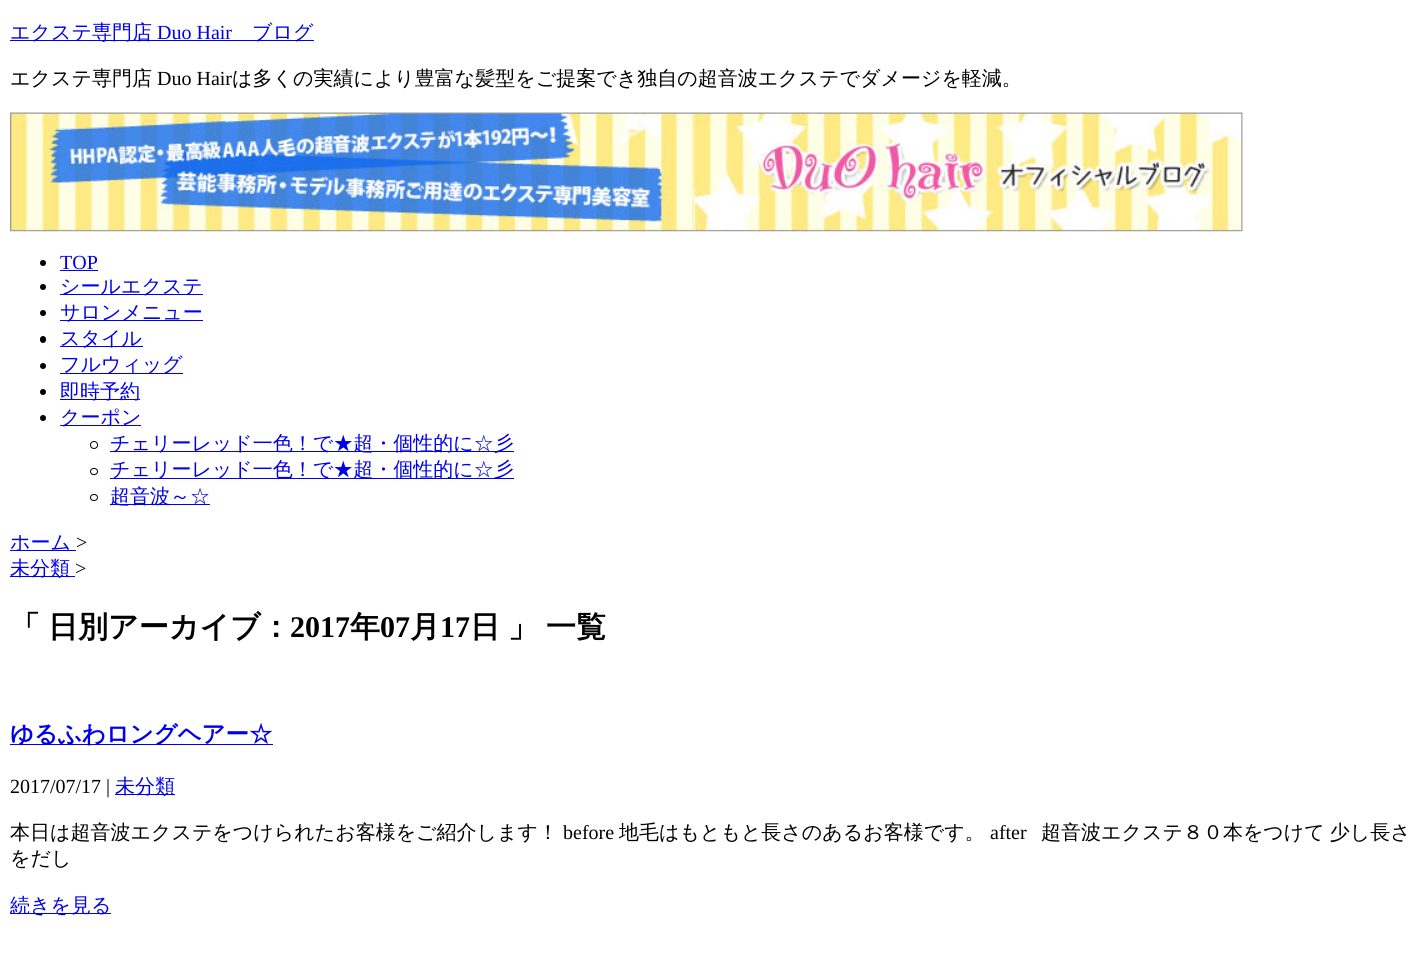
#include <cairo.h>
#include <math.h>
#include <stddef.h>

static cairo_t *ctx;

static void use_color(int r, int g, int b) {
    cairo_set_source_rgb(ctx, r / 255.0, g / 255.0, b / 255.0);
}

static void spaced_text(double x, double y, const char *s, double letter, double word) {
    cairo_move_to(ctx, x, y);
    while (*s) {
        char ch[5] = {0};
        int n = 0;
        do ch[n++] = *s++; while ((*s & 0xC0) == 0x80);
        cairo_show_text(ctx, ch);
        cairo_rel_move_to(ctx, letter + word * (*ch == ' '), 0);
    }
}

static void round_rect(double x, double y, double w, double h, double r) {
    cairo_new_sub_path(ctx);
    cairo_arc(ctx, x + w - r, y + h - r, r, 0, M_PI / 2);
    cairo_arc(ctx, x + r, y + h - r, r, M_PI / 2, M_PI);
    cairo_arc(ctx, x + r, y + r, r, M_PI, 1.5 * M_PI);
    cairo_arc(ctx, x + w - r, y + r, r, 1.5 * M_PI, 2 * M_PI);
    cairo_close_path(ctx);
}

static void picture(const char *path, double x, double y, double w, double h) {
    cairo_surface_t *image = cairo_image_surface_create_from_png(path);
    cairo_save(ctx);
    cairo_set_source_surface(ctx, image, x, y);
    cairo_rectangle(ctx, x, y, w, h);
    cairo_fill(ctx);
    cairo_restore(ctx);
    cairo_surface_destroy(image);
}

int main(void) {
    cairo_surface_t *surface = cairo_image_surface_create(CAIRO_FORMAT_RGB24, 1423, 956);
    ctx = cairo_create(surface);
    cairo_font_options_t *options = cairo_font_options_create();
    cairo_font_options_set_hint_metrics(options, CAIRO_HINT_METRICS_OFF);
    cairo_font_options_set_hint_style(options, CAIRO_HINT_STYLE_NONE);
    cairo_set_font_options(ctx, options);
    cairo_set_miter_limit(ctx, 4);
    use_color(255, 255, 255);
    cairo_paint(ctx);
    use_color(0, 0, 238);
    cairo_rectangle(ctx, 10, 40, 304, 1);
    cairo_fill(ctx);
    cairo_select_font_face(ctx, "WenQuanYi Zen Hei Medium", CAIRO_FONT_SLANT_NORMAL, CAIRO_FONT_WEIGHT_NORMAL);
    cairo_set_font_size(ctx, 20);
    cairo_move_to(ctx, 10, 39);
    cairo_show_text(ctx, "エクステ専門店");
    cairo_select_font_face(ctx, "Liberation Serif", CAIRO_FONT_SLANT_NORMAL, CAIRO_FONT_WEIGHT_NORMAL);
    cairo_move_to(ctx, 157, 39);
    cairo_show_text(ctx, "Duo Hair");
    cairo_select_font_face(ctx, "WenQuanYi Zen Hei Medium", CAIRO_FONT_SLANT_NORMAL, CAIRO_FONT_WEIGHT_NORMAL);
    cairo_move_to(ctx, 252, 39);
    cairo_show_text(ctx, "ブログ");
    use_color(0, 0, 0);
    cairo_move_to(ctx, 10, 85);
    cairo_show_text(ctx, "エクステ専門店");
    cairo_select_font_face(ctx, "Liberation Serif", CAIRO_FONT_SLANT_NORMAL, CAIRO_FONT_WEIGHT_NORMAL);
    cairo_move_to(ctx, 157, 85);
    cairo_show_text(ctx, "Duo Hair");
    cairo_select_font_face(ctx, "WenQuanYi Zen Hei Medium", CAIRO_FONT_SLANT_NORMAL, CAIRO_FONT_WEIGHT_NORMAL);
    cairo_move_to(ctx, 232, 85);
    cairo_show_text(ctx, "は多くの実績により豊富な髪型をご提案でき独自の超音波エクステでダメージを軽減。");
    picture("img1.png", 10, 112, 1233, 120);
    cairo_arc(ctx, 43, 263, 3, 0, 2 * M_PI);
    cairo_fill(ctx);
    cairo_select_font_face(ctx, "Liberation Serif", CAIRO_FONT_SLANT_NORMAL, CAIRO_FONT_WEIGHT_NORMAL);
    use_color(0, 0, 238);
    cairo_move_to(ctx, 60, 269);
    cairo_show_text(ctx, "TOP");
    cairo_rectangle(ctx, 60, 270, 38, 1);
    cairo_fill(ctx);
    use_color(0, 0, 0);
    cairo_arc(ctx, 43, 287, 3, 0, 2 * M_PI);
    cairo_fill(ctx);
    use_color(0, 0, 238);
    cairo_rectangle(ctx, 60, 294, 143, 1);
    cairo_fill(ctx);
    cairo_select_font_face(ctx, "WenQuanYi Zen Hei Medium", CAIRO_FONT_SLANT_NORMAL, CAIRO_FONT_WEIGHT_NORMAL);
    cairo_move_to(ctx, 60, 293);
    cairo_show_text(ctx, "シールエクステ");
    use_color(0, 0, 0);
    cairo_new_path(ctx);
    cairo_arc(ctx, 43, 313, 3, 0, 2 * M_PI);
    cairo_fill(ctx);
    use_color(0, 0, 238);
    cairo_rectangle(ctx, 60, 320, 143, 1);
    cairo_fill(ctx);
    cairo_move_to(ctx, 60, 319);
    cairo_show_text(ctx, "サロンメニュー");
    use_color(0, 0, 0);
    round_rect(40, 336, 6, 7, 3);
    cairo_fill(ctx);
    use_color(0, 0, 238);
    cairo_rectangle(ctx, 60, 346, 83, 1);
    cairo_fill(ctx);
    cairo_move_to(ctx, 60, 345);
    cairo_show_text(ctx, "スタイル");
    use_color(0, 0, 0);
    cairo_new_path(ctx);
    cairo_arc(ctx, 43, 366, 3, 0, 2 * M_PI);
    cairo_fill(ctx);
    use_color(0, 0, 238);
    cairo_rectangle(ctx, 60, 373, 123, 1);
    cairo_fill(ctx);
    cairo_move_to(ctx, 60, 371);
    cairo_show_text(ctx, "フルウィッグ");
    use_color(0, 0, 0);
    cairo_new_path(ctx);
    cairo_arc(ctx, 43, 392, 3, 0, 2 * M_PI);
    cairo_fill(ctx);
    use_color(0, 0, 238);
    cairo_rectangle(ctx, 60, 399, 80, 1);
    cairo_fill(ctx);
    cairo_move_to(ctx, 60, 398);
    cairo_show_text(ctx, "即時予約");
    use_color(0, 0, 0);
    cairo_new_path(ctx);
    cairo_arc(ctx, 43, 418, 3, 0, 2 * M_PI);
    cairo_fill(ctx);
    use_color(0, 0, 238);
    cairo_rectangle(ctx, 60, 425, 81, 1);
    cairo_fill(ctx);
    cairo_move_to(ctx, 60, 424);
    cairo_show_text(ctx, "クーポン");
    cairo_new_path(ctx);
    cairo_arc(ctx, 94, 445, 3.5, 0, 2 * M_PI);
    use_color(0, 0, 0);
    cairo_set_line_width(ctx, 1);
    cairo_stroke(ctx);
    use_color(0, 0, 238);
    cairo_rectangle(ctx, 110, 451, 404, 1);
    cairo_fill(ctx);
    cairo_move_to(ctx, 110, 450);
    cairo_show_text(ctx, "チェリーレッド一色！で★超・個性的に☆彡");
    round_rect(90.5, 468.5, 7, 6, 3);
    use_color(0, 0, 0);
    cairo_stroke(ctx);
    use_color(0, 0, 238);
    cairo_rectangle(ctx, 110, 478, 404, 1);
    cairo_fill(ctx);
    cairo_move_to(ctx, 110, 476);
    cairo_show_text(ctx, "チェリーレッド一色！で★超・個性的に☆彡");
    round_rect(90.5, 494.5, 7, 6, 3);
    use_color(0, 0, 0);
    cairo_stroke(ctx);
    use_color(0, 0, 238);
    cairo_rectangle(ctx, 110, 504, 100, 1);
    cairo_fill(ctx);
    cairo_move_to(ctx, 110, 503);
    cairo_show_text(ctx, "超音波～☆");
    cairo_rectangle(ctx, 10, 550, 66, 1);
    cairo_fill(ctx);
    cairo_move_to(ctx, 10, 549);
    cairo_show_text(ctx, "ホーム");
    cairo_select_font_face(ctx, "Liberation Serif", CAIRO_FONT_SLANT_NORMAL, CAIRO_FONT_WEIGHT_NORMAL);
    use_color(0, 0, 0);
    cairo_move_to(ctx, 76, 549);
    cairo_show_text(ctx, ">");
    use_color(0, 0, 238);
    cairo_rectangle(ctx, 10, 576, 65, 1);
    cairo_fill(ctx);
    cairo_select_font_face(ctx, "WenQuanYi Zen Hei Medium", CAIRO_FONT_SLANT_NORMAL, CAIRO_FONT_WEIGHT_NORMAL);
    cairo_move_to(ctx, 10, 575);
    cairo_show_text(ctx, "未分類");
    cairo_select_font_face(ctx, "Liberation Serif", CAIRO_FONT_SLANT_NORMAL, CAIRO_FONT_WEIGHT_NORMAL);
    use_color(0, 0, 0);
    cairo_move_to(ctx, 75, 575);
    cairo_show_text(ctx, ">");
    cairo_select_font_face(ctx, "WenQuanYi Zen Hei", CAIRO_FONT_SLANT_NORMAL, CAIRO_FONT_WEIGHT_BOLD);
    cairo_set_font_size(ctx, 30);
    cairo_move_to(ctx, 10, 637);
    cairo_show_text(ctx, "「");
    cairo_move_to(ctx, 48, 637);
    cairo_show_text(ctx, "日別アーカイブ：");
    cairo_select_font_face(ctx, "Liberation Serif", CAIRO_FONT_SLANT_NORMAL, CAIRO_FONT_WEIGHT_BOLD);
    cairo_move_to(ctx, 290, 637);
    cairo_show_text(ctx, "2017");
    cairo_select_font_face(ctx, "WenQuanYi Zen Hei", CAIRO_FONT_SLANT_NORMAL, CAIRO_FONT_WEIGHT_BOLD);
    cairo_move_to(ctx, 350, 637);
    cairo_show_text(ctx, "年");
    cairo_select_font_face(ctx, "Liberation Serif", CAIRO_FONT_SLANT_NORMAL, CAIRO_FONT_WEIGHT_BOLD);
    cairo_move_to(ctx, 380, 637);
    cairo_show_text(ctx, "07");
    cairo_select_font_face(ctx, "WenQuanYi Zen Hei", CAIRO_FONT_SLANT_NORMAL, CAIRO_FONT_WEIGHT_BOLD);
    cairo_move_to(ctx, 410, 637);
    cairo_show_text(ctx, "月");
    cairo_select_font_face(ctx, "Liberation Serif", CAIRO_FONT_SLANT_NORMAL, CAIRO_FONT_WEIGHT_BOLD);
    cairo_move_to(ctx, 440, 637);
    cairo_show_text(ctx, "17");
    cairo_select_font_face(ctx, "WenQuanYi Zen Hei", CAIRO_FONT_SLANT_NORMAL, CAIRO_FONT_WEIGHT_BOLD);
    cairo_move_to(ctx, 470, 637);
    cairo_show_text(ctx, "日");
    spaced_text(508, 637, "」 一覧", 0, -1);
    use_color(0, 0, 238);
    cairo_rectangle(ctx, 10, 744, 263, 1);
    cairo_fill(ctx);
    cairo_set_font_size(ctx, 23.4);
    cairo_move_to(ctx, 10, 742);
    cairo_show_text(ctx, "ゆるふわロングヘアー☆");
    cairo_select_font_face(ctx, "Liberation Serif", CAIRO_FONT_SLANT_NORMAL, CAIRO_FONT_WEIGHT_NORMAL);
    cairo_set_font_size(ctx, 20);
    use_color(0, 0, 0);
    cairo_move_to(ctx, 10, 793);
    cairo_show_text(ctx, "2017/07/17 |");
    use_color(0, 0, 238);
    cairo_rectangle(ctx, 115, 794, 60, 1);
    cairo_fill(ctx);
    cairo_select_font_face(ctx, "WenQuanYi Zen Hei Medium", CAIRO_FONT_SLANT_NORMAL, CAIRO_FONT_WEIGHT_NORMAL);
    cairo_move_to(ctx, 115, 793);
    cairo_show_text(ctx, "未分類");
    use_color(0, 0, 0);
    cairo_move_to(ctx, 10, 839);
    cairo_show_text(ctx, "本日は超音波エクステをつけられたお客様をご紹介します！");
    cairo_select_font_face(ctx, "Liberation Serif", CAIRO_FONT_SLANT_NORMAL, CAIRO_FONT_WEIGHT_NORMAL);
    cairo_move_to(ctx, 563, 839);
    cairo_show_text(ctx, "before");
    cairo_select_font_face(ctx, "WenQuanYi Zen Hei Medium", CAIRO_FONT_SLANT_NORMAL, CAIRO_FONT_WEIGHT_NORMAL);
    cairo_move_to(ctx, 619, 839);
    cairo_show_text(ctx, "地毛はもともと長さのあるお客様です。");
    cairo_select_font_face(ctx, "Liberation Serif", CAIRO_FONT_SLANT_NORMAL, CAIRO_FONT_WEIGHT_NORMAL);
    cairo_move_to(ctx, 990, 839);
    cairo_show_text(ctx, "after");
    cairo_select_font_face(ctx, "WenQuanYi Zen Hei Medium", CAIRO_FONT_SLANT_NORMAL, CAIRO_FONT_WEIGHT_NORMAL);
    spaced_text(1041, 839, "超音波エクステ８０本をつけて 少し長さ", 0, -1);
    cairo_move_to(ctx, 10, 865);
    cairo_show_text(ctx, "をだし");
    use_color(0, 0, 238);
    cairo_rectangle(ctx, 10, 913, 101, 1);
    cairo_fill(ctx);
    cairo_move_to(ctx, 10, 912);
    cairo_show_text(ctx, "続きを見る");
    cairo_surface_write_to_png(surface, "result.png");
    cairo_font_options_destroy(options);
    cairo_destroy(ctx);
    cairo_surface_destroy(surface);
    return 0;
}
